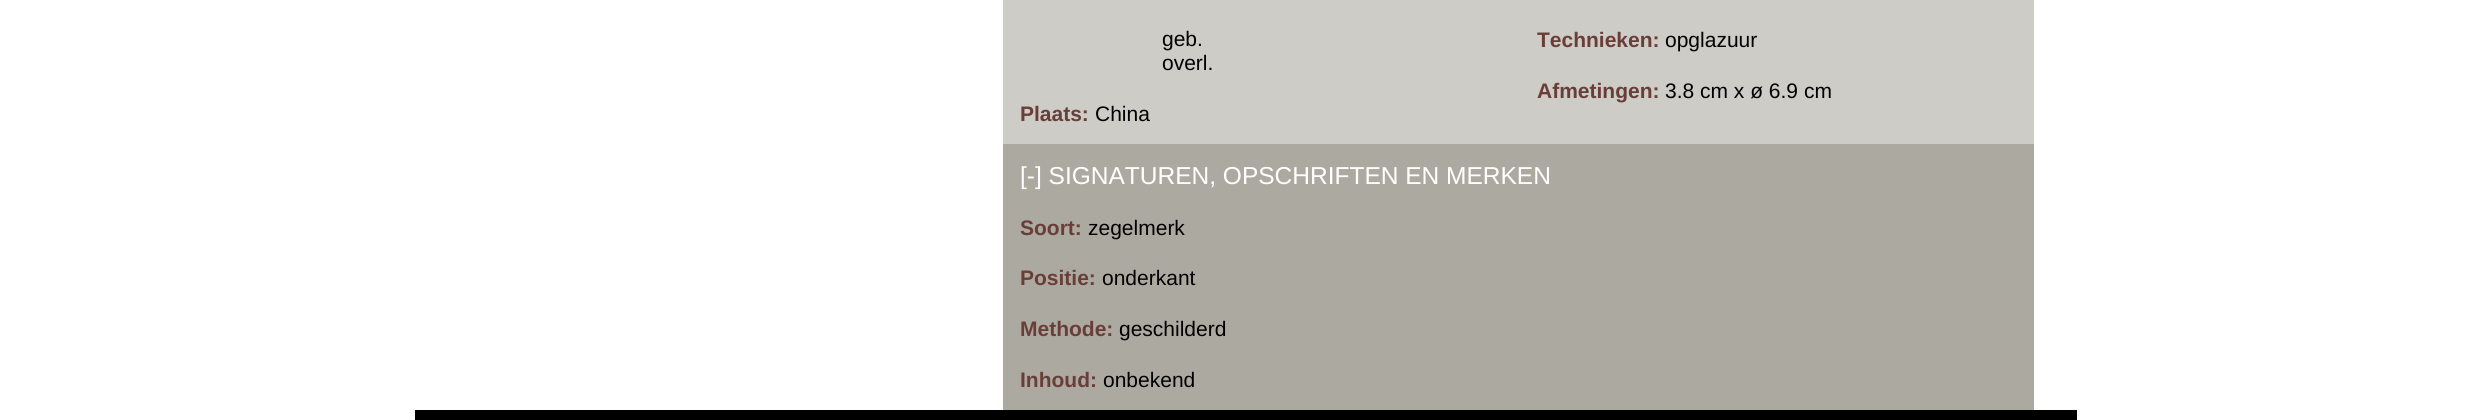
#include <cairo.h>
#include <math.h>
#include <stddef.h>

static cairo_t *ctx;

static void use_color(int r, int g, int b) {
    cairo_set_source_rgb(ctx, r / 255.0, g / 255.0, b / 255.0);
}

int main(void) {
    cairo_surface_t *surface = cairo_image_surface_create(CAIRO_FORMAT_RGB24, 2491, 420);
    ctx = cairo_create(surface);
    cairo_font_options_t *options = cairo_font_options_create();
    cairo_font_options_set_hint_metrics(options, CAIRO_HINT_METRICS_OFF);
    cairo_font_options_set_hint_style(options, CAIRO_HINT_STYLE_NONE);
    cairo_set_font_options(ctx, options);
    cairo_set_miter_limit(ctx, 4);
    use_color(255, 255, 255);
    cairo_paint(ctx);
    use_color(205, 204, 198);
    cairo_rectangle(ctx, 1003, 0, 1031, 144);
    cairo_fill(ctx);
    cairo_select_font_face(ctx, "Liberation Sans", CAIRO_FONT_SLANT_NORMAL, CAIRO_FONT_WEIGHT_NORMAL);
    cairo_set_font_size(ctx, 21);
    use_color(0, 0, 0);
    cairo_move_to(ctx, 1162, 46);
    cairo_show_text(ctx, "geb.");
    cairo_move_to(ctx, 1162, 70);
    cairo_show_text(ctx, "overl.");
    cairo_select_font_face(ctx, "Liberation Sans", CAIRO_FONT_SLANT_NORMAL, CAIRO_FONT_WEIGHT_BOLD);
    use_color(106, 62, 56);
    cairo_move_to(ctx, 1020, 121);
    cairo_show_text(ctx, "Plaats:");
    cairo_select_font_face(ctx, "Liberation Sans", CAIRO_FONT_SLANT_NORMAL, CAIRO_FONT_WEIGHT_NORMAL);
    use_color(0, 0, 0);
    cairo_move_to(ctx, 1095, 121);
    cairo_show_text(ctx, "China");
    cairo_select_font_face(ctx, "Liberation Sans", CAIRO_FONT_SLANT_NORMAL, CAIRO_FONT_WEIGHT_BOLD);
    use_color(106, 62, 56);
    cairo_move_to(ctx, 1537, 47);
    cairo_show_text(ctx, "Technieken:");
    cairo_select_font_face(ctx, "Liberation Sans", CAIRO_FONT_SLANT_NORMAL, CAIRO_FONT_WEIGHT_NORMAL);
    use_color(0, 0, 0);
    cairo_move_to(ctx, 1665, 47);
    cairo_show_text(ctx, "opglazuur");
    cairo_select_font_face(ctx, "Liberation Sans", CAIRO_FONT_SLANT_NORMAL, CAIRO_FONT_WEIGHT_BOLD);
    use_color(106, 62, 56);
    cairo_move_to(ctx, 1537, 98);
    cairo_show_text(ctx, "Afmetingen:");
    cairo_select_font_face(ctx, "Liberation Sans", CAIRO_FONT_SLANT_NORMAL, CAIRO_FONT_WEIGHT_NORMAL);
    use_color(0, 0, 0);
    cairo_move_to(ctx, 1665, 98);
    cairo_show_text(ctx, "3.8 cm x ø 6.9 cm");
    use_color(172, 170, 160);
    cairo_rectangle(ctx, 1003, 144, 1031, 266);
    cairo_fill(ctx);
    cairo_set_font_size(ctx, 24.5);
    use_color(255, 255, 255);
    cairo_move_to(ctx, 1020, 184);
    cairo_show_text(ctx, "[-] SIGNATUREN, OPSCHRIFTEN EN MERKEN");
    cairo_select_font_face(ctx, "Liberation Sans", CAIRO_FONT_SLANT_NORMAL, CAIRO_FONT_WEIGHT_BOLD);
    cairo_set_font_size(ctx, 21);
    use_color(106, 62, 56);
    cairo_move_to(ctx, 1020, 235);
    cairo_show_text(ctx, "Soort:");
    cairo_select_font_face(ctx, "Liberation Sans", CAIRO_FONT_SLANT_NORMAL, CAIRO_FONT_WEIGHT_NORMAL);
    use_color(0, 0, 0);
    cairo_move_to(ctx, 1088, 235);
    cairo_show_text(ctx, "zegelmerk");
    cairo_select_font_face(ctx, "Liberation Sans", CAIRO_FONT_SLANT_NORMAL, CAIRO_FONT_WEIGHT_BOLD);
    use_color(106, 62, 56);
    cairo_move_to(ctx, 1020, 285);
    cairo_show_text(ctx, "Positie:");
    cairo_select_font_face(ctx, "Liberation Sans", CAIRO_FONT_SLANT_NORMAL, CAIRO_FONT_WEIGHT_NORMAL);
    use_color(0, 0, 0);
    cairo_move_to(ctx, 1102, 285);
    cairo_show_text(ctx, "onderkant");
    cairo_select_font_face(ctx, "Liberation Sans", CAIRO_FONT_SLANT_NORMAL, CAIRO_FONT_WEIGHT_BOLD);
    use_color(106, 62, 56);
    cairo_move_to(ctx, 1020, 336);
    cairo_show_text(ctx, "Methode:");
    cairo_select_font_face(ctx, "Liberation Sans", CAIRO_FONT_SLANT_NORMAL, CAIRO_FONT_WEIGHT_NORMAL);
    use_color(0, 0, 0);
    cairo_move_to(ctx, 1119, 336);
    cairo_show_text(ctx, "geschilderd");
    cairo_select_font_face(ctx, "Liberation Sans", CAIRO_FONT_SLANT_NORMAL, CAIRO_FONT_WEIGHT_BOLD);
    use_color(106, 62, 56);
    cairo_move_to(ctx, 1020, 387);
    cairo_show_text(ctx, "Inhoud:");
    cairo_select_font_face(ctx, "Liberation Sans", CAIRO_FONT_SLANT_NORMAL, CAIRO_FONT_WEIGHT_NORMAL);
    use_color(0, 0, 0);
    cairo_move_to(ctx, 1103, 387);
    cairo_show_text(ctx, "onbekend");
    cairo_rectangle(ctx, 415, 410, 1662, 10);
    cairo_fill(ctx);
    cairo_surface_write_to_png(surface, "result.png");
    cairo_font_options_destroy(options);
    cairo_destroy(ctx);
    cairo_surface_destroy(surface);
    return 0;
}
